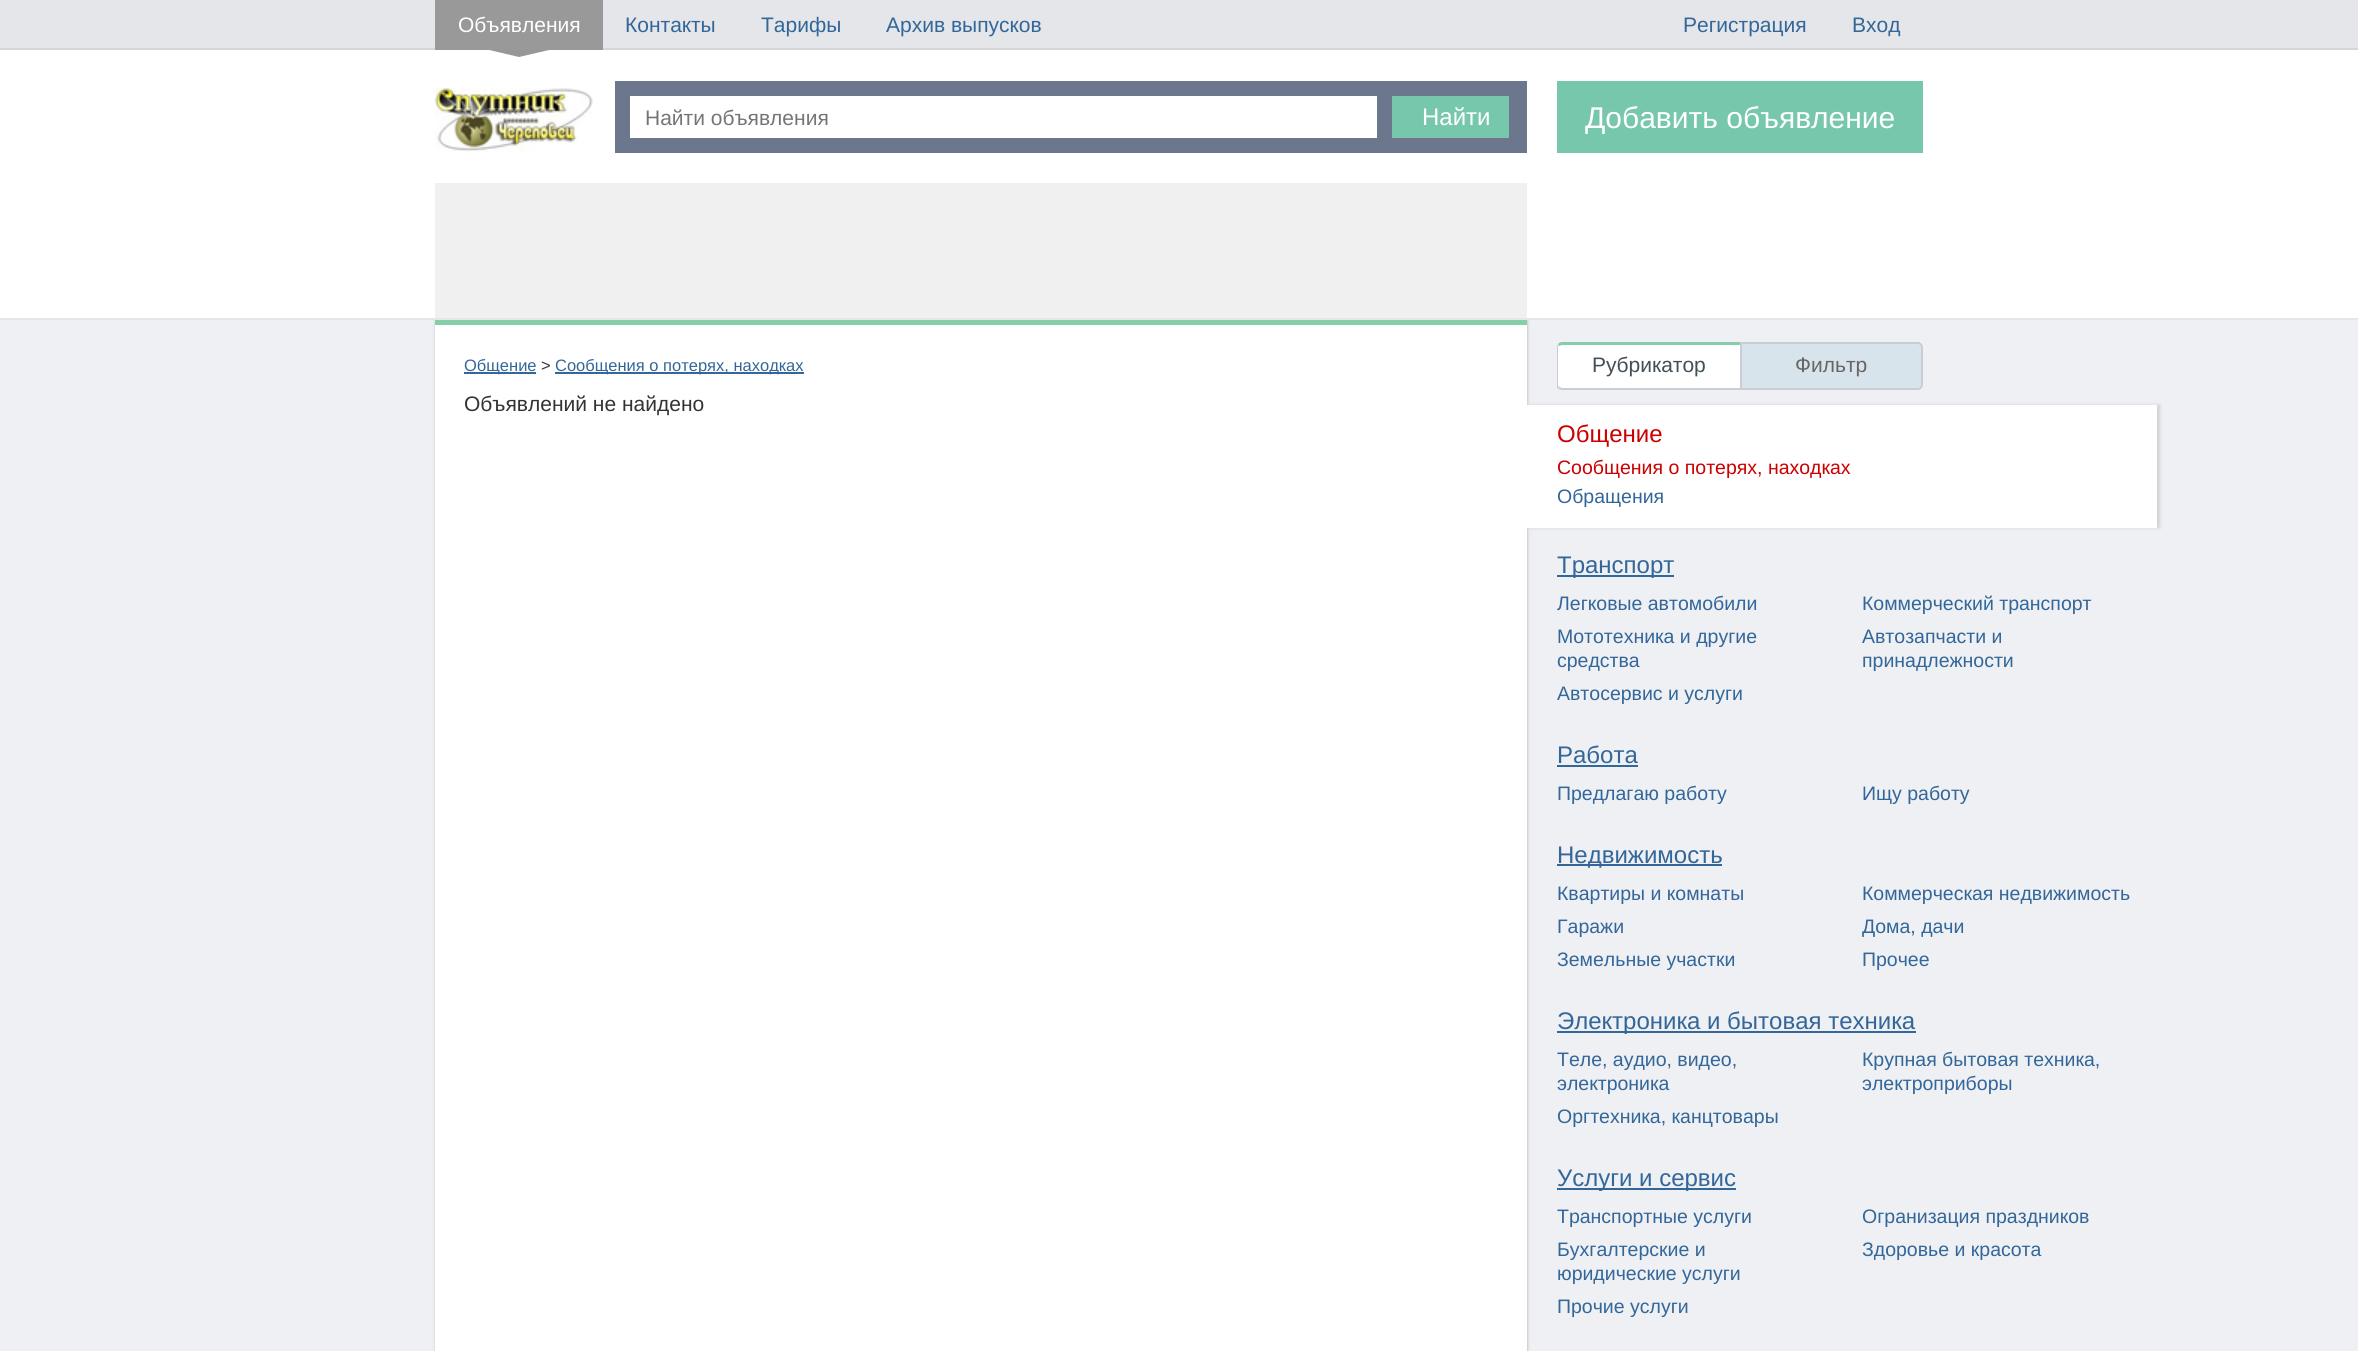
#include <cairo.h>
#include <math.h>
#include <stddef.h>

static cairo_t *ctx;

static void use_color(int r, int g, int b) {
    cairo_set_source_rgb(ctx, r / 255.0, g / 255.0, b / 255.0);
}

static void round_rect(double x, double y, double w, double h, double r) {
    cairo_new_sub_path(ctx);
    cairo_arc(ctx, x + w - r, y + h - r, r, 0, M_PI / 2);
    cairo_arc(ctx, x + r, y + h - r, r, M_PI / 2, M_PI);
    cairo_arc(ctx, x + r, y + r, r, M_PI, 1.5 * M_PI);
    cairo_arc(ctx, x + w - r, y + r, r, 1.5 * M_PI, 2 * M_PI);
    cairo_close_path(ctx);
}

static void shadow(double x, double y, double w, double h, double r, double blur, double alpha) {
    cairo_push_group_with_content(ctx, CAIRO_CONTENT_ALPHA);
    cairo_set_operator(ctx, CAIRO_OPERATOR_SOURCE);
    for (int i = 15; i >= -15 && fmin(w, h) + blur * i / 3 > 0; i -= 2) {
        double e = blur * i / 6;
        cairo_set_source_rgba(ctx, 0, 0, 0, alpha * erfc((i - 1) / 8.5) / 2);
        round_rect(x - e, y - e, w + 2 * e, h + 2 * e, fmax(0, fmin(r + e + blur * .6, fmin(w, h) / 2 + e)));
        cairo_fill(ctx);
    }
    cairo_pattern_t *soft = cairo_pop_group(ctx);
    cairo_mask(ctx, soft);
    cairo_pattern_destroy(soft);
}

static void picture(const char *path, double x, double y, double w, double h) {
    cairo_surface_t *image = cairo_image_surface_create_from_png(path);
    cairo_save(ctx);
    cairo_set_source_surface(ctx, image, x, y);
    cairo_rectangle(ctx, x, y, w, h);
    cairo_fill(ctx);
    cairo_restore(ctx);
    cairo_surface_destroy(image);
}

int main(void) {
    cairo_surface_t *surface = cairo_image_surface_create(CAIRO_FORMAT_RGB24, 2358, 1351);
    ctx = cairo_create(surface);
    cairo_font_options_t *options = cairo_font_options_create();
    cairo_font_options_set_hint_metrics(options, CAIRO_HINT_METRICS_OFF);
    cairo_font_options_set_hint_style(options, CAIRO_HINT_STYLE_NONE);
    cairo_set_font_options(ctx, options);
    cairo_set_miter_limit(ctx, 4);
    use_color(238, 240, 244);
    cairo_paint(ctx);
    use_color(0, 0, 0);
    shadow(437, 321, 1089, 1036, 0, 2, 0.53);
    use_color(255, 255, 255);
    cairo_rectangle(ctx, 0, 50, 2358, 268);
    cairo_fill(ctx);
    use_color(228, 230, 234);
    cairo_rectangle(ctx, 0, 318, 2358, 2);
    cairo_fill(ctx);
    cairo_rectangle(ctx, 0, 0, 2358, 48);
    cairo_fill(ctx);
    use_color(211, 213, 216);
    cairo_rectangle(ctx, 0, 48, 2358, 2);
    cairo_fill(ctx);
    use_color(153, 153, 153);
    cairo_rectangle(ctx, 435, 0, 168, 50);
    cairo_fill(ctx);
    cairo_select_font_face(ctx, "Liberation Sans", CAIRO_FONT_SLANT_NORMAL, CAIRO_FONT_WEIGHT_NORMAL);
    cairo_set_font_size(ctx, 21);
    use_color(255, 255, 255);
    cairo_move_to(ctx, 458, 32);
    cairo_show_text(ctx, "Объявления");
    use_color(151, 151, 151);
    cairo_new_path(ctx);
    cairo_move_to(ctx, 489, 50);
    cairo_line_to(ctx, 549, 50);
    cairo_line_to(ctx, 519, 57);
    cairo_close_path(ctx);
    cairo_fill(ctx);
    use_color(51, 102, 153);
    cairo_move_to(ctx, 625, 32);
    cairo_show_text(ctx, "Контакты");
    cairo_move_to(ctx, 761, 32);
    cairo_show_text(ctx, "Тарифы");
    cairo_move_to(ctx, 886, 32);
    cairo_show_text(ctx, "Архив выпусков");
    cairo_move_to(ctx, 1683, 32);
    cairo_show_text(ctx, "Регистрация");
    cairo_move_to(ctx, 1852, 32);
    cairo_show_text(ctx, "Вход");
    picture("img1.png", 435, 87, 158, 66);
    use_color(108, 119, 142);
    cairo_rectangle(ctx, 615, 81, 912, 72);
    cairo_fill(ctx);
    use_color(255, 255, 255);
    cairo_rectangle(ctx, 630, 96, 747, 42);
    cairo_fill(ctx);
    use_color(117, 117, 117);
    cairo_move_to(ctx, 645, 125);
    cairo_show_text(ctx, "Найти объявления");
    use_color(119, 199, 172);
    cairo_rectangle(ctx, 1392, 96, 117, 42);
    cairo_fill(ctx);
    cairo_set_font_size(ctx, 24);
    use_color(255, 255, 255);
    cairo_move_to(ctx, 1422, 125);
    cairo_show_text(ctx, "Найти");
    use_color(119, 199, 172);
    cairo_rectangle(ctx, 1557, 81, 366, 72);
    cairo_fill(ctx);
    cairo_set_font_size(ctx, 30);
    use_color(255, 255, 255);
    cairo_move_to(ctx, 1585, 128);
    cairo_show_text(ctx, "Добавить объявление");
    use_color(240, 240, 240);
    cairo_rectangle(ctx, 435, 183, 1092, 135);
    cairo_fill(ctx);
    use_color(255, 255, 255);
    cairo_rectangle(ctx, 435, 325, 1092, 1026);
    cairo_fill(ctx);
    use_color(132, 207, 169);
    cairo_rectangle(ctx, 435, 320, 1092, 5);
    cairo_fill(ctx);
    use_color(51, 102, 153);
    cairo_rectangle(ctx, 464, 372, 72, 2);
    cairo_fill(ctx);
    cairo_set_font_size(ctx, 16.5);
    cairo_move_to(ctx, 464, 371);
    cairo_show_text(ctx, "Общение");
    use_color(51, 51, 51);
    cairo_move_to(ctx, 541, 371);
    cairo_show_text(ctx, ">");
    use_color(51, 102, 153);
    cairo_rectangle(ctx, 555, 372, 249, 2);
    cairo_fill(ctx);
    cairo_move_to(ctx, 555, 371);
    cairo_show_text(ctx, "Сообщения о потерях, находках");
    cairo_set_font_size(ctx, 21);
    use_color(51, 51, 51);
    cairo_move_to(ctx, 464, 411);
    cairo_show_text(ctx, "Объявлений не найдено");
    use_color(255, 255, 255);
    cairo_new_path(ctx);
    cairo_move_to(ctx, 1562, 342);
    cairo_line_to(ctx, 1740, 342);
    cairo_line_to(ctx, 1740, 390);
    cairo_line_to(ctx, 1562, 390);
    cairo_curve_to(ctx, 1559, 390, 1557, 388, 1557, 385);
    cairo_line_to(ctx, 1557, 347);
    cairo_curve_to(ctx, 1557, 344, 1559, 342, 1562, 342);
    cairo_close_path(ctx);
    cairo_fill(ctx);
    use_color(132, 207, 169);
    cairo_new_path(ctx);
    cairo_move_to(ctx, 1562, 342);
    cairo_curve_to(ctx, 1560, 342, 1559, 343, 1558, 344);
    cairo_line_to(ctx, 1559, 346);
    cairo_line_to(ctx, 1562, 345);
    cairo_line_to(ctx, 1740, 345);
    cairo_line_to(ctx, 1740, 342);
    cairo_close_path(ctx);
    cairo_fill(ctx);
    use_color(201, 206, 214);
    cairo_new_path(ctx);
    cairo_move_to(ctx, 1740, 390);
    cairo_line_to(ctx, 1740, 388);
    cairo_line_to(ctx, 1562, 388);
    cairo_line_to(ctx, 1560, 387);
    cairo_line_to(ctx, 1558, 389);
    cairo_curve_to(ctx, 1559, 389, 1560, 390, 1562, 390);
    cairo_close_path(ctx);
    cairo_fill(ctx);
    cairo_new_path(ctx);
    cairo_move_to(ctx, 1557, 346);
    cairo_line_to(ctx, 1557, 386);
    cairo_curve_to(ctx, 1557, 387, 1557, 388, 1558, 389);
    cairo_line_to(ctx, 1560, 387);
    cairo_line_to(ctx, 1558, 386);
    cairo_line_to(ctx, 1558, 346);
    cairo_line_to(ctx, 1559, 346);
    cairo_line_to(ctx, 1558, 344);
    cairo_close_path(ctx);
    cairo_fill(ctx);
    use_color(67, 78, 85);
    cairo_move_to(ctx, 1592, 372);
    cairo_show_text(ctx, "Рубрикатор");
    use_color(216, 228, 235);
    cairo_new_path(ctx);
    cairo_move_to(ctx, 1741, 343);
    cairo_line_to(ctx, 1918, 343);
    cairo_curve_to(ctx, 1920, 343, 1922, 345, 1922, 347);
    cairo_line_to(ctx, 1922, 385);
    cairo_curve_to(ctx, 1922, 387, 1920, 389, 1918, 389);
    cairo_line_to(ctx, 1741, 389);
    cairo_close_path(ctx);
    cairo_fill_preserve(ctx);
    use_color(201, 206, 214);
    cairo_stroke(ctx);
    use_color(102, 102, 102);
    cairo_move_to(ctx, 1795, 372);
    cairo_show_text(ctx, "Фильтр");
    use_color(0, 0, 0);
    shadow(1530, 405, 630, 123, 0, 1.5, 0.13);
    use_color(255, 255, 255);
    cairo_rectangle(ctx, 1527, 405, 630, 123);
    cairo_fill(ctx);
    cairo_set_font_size(ctx, 24);
    use_color(204, 0, 0);
    cairo_move_to(ctx, 1557, 442);
    cairo_show_text(ctx, "Общение");
    cairo_set_font_size(ctx, 19.5);
    cairo_move_to(ctx, 1557, 474);
    cairo_show_text(ctx, "Сообщения о потерях, находках");
    use_color(51, 102, 153);
    cairo_move_to(ctx, 1557, 503);
    cairo_show_text(ctx, "Обращения");
    cairo_rectangle(ctx, 1557, 575, 117, 2);
    cairo_fill(ctx);
    cairo_set_font_size(ctx, 24);
    cairo_move_to(ctx, 1557, 573);
    cairo_show_text(ctx, "Транспорт");
    cairo_set_font_size(ctx, 19.5);
    cairo_move_to(ctx, 1557, 610);
    cairo_show_text(ctx, "Легковые автомобили");
    cairo_move_to(ctx, 1862, 610);
    cairo_show_text(ctx, "Коммерческий транспорт");
    cairo_move_to(ctx, 1557, 643);
    cairo_show_text(ctx, "Мототехника и другие");
    cairo_move_to(ctx, 1557, 667);
    cairo_show_text(ctx, "средства");
    cairo_move_to(ctx, 1862, 643);
    cairo_show_text(ctx, "Автозапчасти и");
    cairo_move_to(ctx, 1862, 667);
    cairo_show_text(ctx, "принадлежности");
    cairo_move_to(ctx, 1557, 700);
    cairo_show_text(ctx, "Автосервис и услуги");
    cairo_set_font_size(ctx, 24);
    cairo_move_to(ctx, 1557, 763);
    cairo_show_text(ctx, "Работа");
    cairo_rectangle(ctx, 1557, 765, 81, 2);
    cairo_fill(ctx);
    cairo_set_font_size(ctx, 19.5);
    cairo_move_to(ctx, 1557, 800);
    cairo_show_text(ctx, "Предлагаю работу");
    cairo_move_to(ctx, 1862, 800);
    cairo_show_text(ctx, "Ищу работу");
    cairo_rectangle(ctx, 1557, 864, 165, 2);
    cairo_fill(ctx);
    cairo_set_font_size(ctx, 24);
    cairo_move_to(ctx, 1557, 863);
    cairo_show_text(ctx, "Недвижимость");
    cairo_set_font_size(ctx, 19.5);
    cairo_move_to(ctx, 1557, 900);
    cairo_show_text(ctx, "Квартиры и комнаты");
    cairo_move_to(ctx, 1862, 900);
    cairo_show_text(ctx, "Коммерческая недвижимость");
    cairo_move_to(ctx, 1557, 933);
    cairo_show_text(ctx, "Гаражи");
    cairo_move_to(ctx, 1862, 933);
    cairo_show_text(ctx, "Дома, дачи");
    cairo_move_to(ctx, 1557, 966);
    cairo_show_text(ctx, "Земельные участки");
    cairo_move_to(ctx, 1862, 966);
    cairo_show_text(ctx, "Прочее");
    cairo_rectangle(ctx, 1557, 1031, 359, 2);
    cairo_fill(ctx);
    cairo_set_font_size(ctx, 24);
    cairo_move_to(ctx, 1557, 1029);
    cairo_show_text(ctx, "Электроника и бытовая техника");
    cairo_set_font_size(ctx, 19.5);
    cairo_move_to(ctx, 1557, 1066);
    cairo_show_text(ctx, "Теле, аудио, видео,");
    cairo_move_to(ctx, 1557, 1090);
    cairo_show_text(ctx, "электроника");
    cairo_move_to(ctx, 1862, 1066);
    cairo_show_text(ctx, "Крупная бытовая техника,");
    cairo_move_to(ctx, 1862, 1090);
    cairo_show_text(ctx, "электроприборы");
    cairo_move_to(ctx, 1557, 1123);
    cairo_show_text(ctx, "Оргтехника, канцтовары");
    cairo_rectangle(ctx, 1557, 1188, 179, 2);
    cairo_fill(ctx);
    cairo_set_font_size(ctx, 24);
    cairo_move_to(ctx, 1557, 1186);
    cairo_show_text(ctx, "Услуги и сервис");
    cairo_set_font_size(ctx, 19.5);
    cairo_move_to(ctx, 1557, 1223);
    cairo_show_text(ctx, "Транспортные услуги");
    cairo_move_to(ctx, 1862, 1223);
    cairo_show_text(ctx, "Огранизация праздников");
    cairo_move_to(ctx, 1557, 1256);
    cairo_show_text(ctx, "Бухгалтерские и");
    cairo_move_to(ctx, 1557, 1280);
    cairo_show_text(ctx, "юридические услуги");
    cairo_move_to(ctx, 1862, 1256);
    cairo_show_text(ctx, "Здоровье и красота");
    cairo_move_to(ctx, 1557, 1313);
    cairo_show_text(ctx, "Прочие услуги");
    cairo_surface_write_to_png(surface, "result.png");
    cairo_font_options_destroy(options);
    cairo_destroy(ctx);
    cairo_surface_destroy(surface);
    return 0;
}
